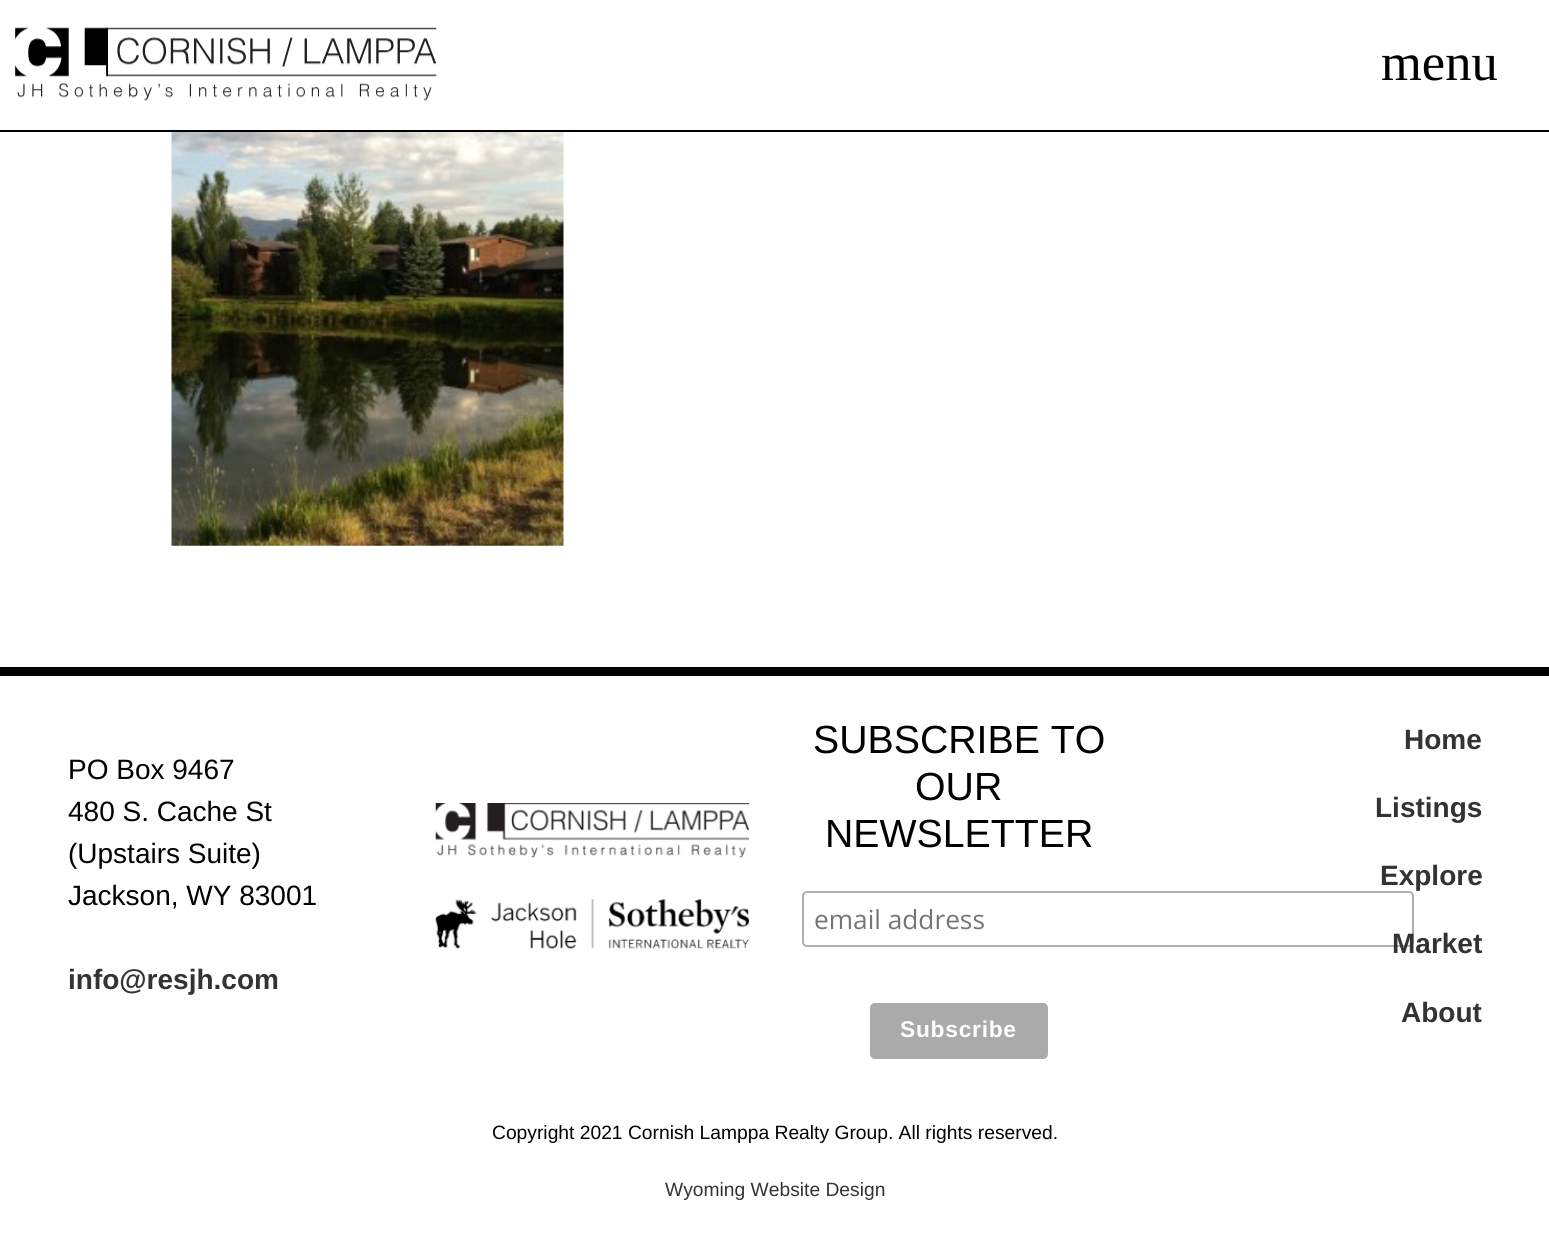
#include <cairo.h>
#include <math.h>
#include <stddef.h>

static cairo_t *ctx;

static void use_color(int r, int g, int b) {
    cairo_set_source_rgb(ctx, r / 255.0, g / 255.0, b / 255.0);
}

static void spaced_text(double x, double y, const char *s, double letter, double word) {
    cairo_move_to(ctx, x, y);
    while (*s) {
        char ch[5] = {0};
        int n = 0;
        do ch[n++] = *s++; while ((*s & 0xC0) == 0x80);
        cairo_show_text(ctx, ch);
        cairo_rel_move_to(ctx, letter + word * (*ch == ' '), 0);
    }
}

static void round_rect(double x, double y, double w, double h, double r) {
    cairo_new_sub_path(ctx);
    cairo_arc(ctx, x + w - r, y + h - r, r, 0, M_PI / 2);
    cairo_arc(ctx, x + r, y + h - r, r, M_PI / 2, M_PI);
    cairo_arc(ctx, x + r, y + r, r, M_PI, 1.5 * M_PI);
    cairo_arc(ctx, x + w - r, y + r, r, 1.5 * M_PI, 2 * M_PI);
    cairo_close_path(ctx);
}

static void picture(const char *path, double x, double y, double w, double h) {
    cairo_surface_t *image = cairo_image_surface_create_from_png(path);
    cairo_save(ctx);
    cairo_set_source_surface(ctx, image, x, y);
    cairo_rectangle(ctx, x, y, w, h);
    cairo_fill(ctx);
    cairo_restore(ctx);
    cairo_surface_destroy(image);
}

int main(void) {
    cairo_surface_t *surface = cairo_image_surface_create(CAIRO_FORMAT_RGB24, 1549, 1233);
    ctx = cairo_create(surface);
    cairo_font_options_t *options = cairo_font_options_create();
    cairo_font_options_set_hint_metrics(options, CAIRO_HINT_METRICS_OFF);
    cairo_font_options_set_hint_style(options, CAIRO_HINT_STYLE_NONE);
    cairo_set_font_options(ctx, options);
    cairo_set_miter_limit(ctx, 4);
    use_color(255, 255, 255);
    cairo_paint(ctx);
    use_color(0, 0, 0);
    cairo_rectangle(ctx, 0, 130, 1549, 2);
    cairo_fill(ctx);
    picture("img1.png", 15, 27, 422, 74);
    cairo_select_font_face(ctx, "Liberation Serif", CAIRO_FONT_SLANT_NORMAL, CAIRO_FONT_WEIGHT_NORMAL);
    cairo_set_font_size(ctx, 52.5);
    cairo_move_to(ctx, 1381, 80);
    cairo_show_text(ctx, "menu");
    picture("img2.png", 171, 132, 393, 414);
    cairo_rectangle(ctx, 0, 667, 1549, 9);
    cairo_fill(ctx);
    cairo_select_font_face(ctx, "Liberation Sans", CAIRO_FONT_SLANT_NORMAL, CAIRO_FONT_WEIGHT_NORMAL);
    cairo_set_font_size(ctx, 28);
    cairo_move_to(ctx, 68, 779);
    cairo_show_text(ctx, "PO Box 9467");
    cairo_move_to(ctx, 68, 821);
    cairo_show_text(ctx, "480 S. Cache St");
    cairo_move_to(ctx, 68, 863);
    cairo_show_text(ctx, "(Upstairs Suite)");
    cairo_move_to(ctx, 68, 905);
    cairo_show_text(ctx, "Jackson, WY 83001");
    cairo_select_font_face(ctx, "Liberation Sans", CAIRO_FONT_SLANT_NORMAL, CAIRO_FONT_WEIGHT_BOLD);
    use_color(51, 51, 51);
    cairo_move_to(ctx, 68, 989);
    cairo_show_text(ctx, "info@resjh.com");
    picture("img3.png", 435, 803, 314, 55);
    picture("img4.png", 435, 899, 314, 50);
    cairo_select_font_face(ctx, "Liberation Sans", CAIRO_FONT_SLANT_NORMAL, CAIRO_FONT_WEIGHT_NORMAL);
    cairo_set_font_size(ctx, 39.25);
    use_color(0, 0, 0);
    cairo_move_to(ctx, 813, 753);
    cairo_show_text(ctx, "SUBSCRIBE TO");
    cairo_move_to(ctx, 915, 800);
    cairo_show_text(ctx, "OUR");
    cairo_move_to(ctx, 825, 847);
    cairo_show_text(ctx, "NEWSLETTER");
    round_rect(803, 892, 610, 54, 4);
    use_color(171, 176, 178);
    cairo_stroke(ctx);
    cairo_select_font_face(ctx, "Open Sans", CAIRO_FONT_SLANT_NORMAL, CAIRO_FONT_WEIGHT_NORMAL);
    cairo_set_font_size(ctx, 26.25);
    use_color(117, 117, 117);
    cairo_move_to(ctx, 814, 929);
    cairo_show_text(ctx, "email address");
    use_color(170, 170, 170);
    round_rect(870, 1003, 178, 56, 5);
    cairo_fill(ctx);
    cairo_select_font_face(ctx, "Liberation Sans", CAIRO_FONT_SLANT_NORMAL, CAIRO_FONT_WEIGHT_BOLD);
    cairo_set_font_size(ctx, 22.75);
    use_color(255, 255, 255);
    spaced_text(900, 1037, "Subscribe", 0.75, 0);
    cairo_set_font_size(ctx, 28);
    use_color(51, 51, 51);
    cairo_move_to(ctx, 1404, 749);
    cairo_show_text(ctx, "Home");
    cairo_move_to(ctx, 1375, 817);
    cairo_show_text(ctx, "Listings");
    cairo_move_to(ctx, 1380, 885);
    cairo_show_text(ctx, "Explore");
    cairo_move_to(ctx, 1392, 953);
    cairo_show_text(ctx, "Market");
    cairo_move_to(ctx, 1401, 1022);
    cairo_show_text(ctx, "About");
    cairo_select_font_face(ctx, "Liberation Sans", CAIRO_FONT_SLANT_NORMAL, CAIRO_FONT_WEIGHT_NORMAL);
    cairo_set_font_size(ctx, 19.25);
    use_color(0, 0, 0);
    cairo_move_to(ctx, 492, 1139);
    cairo_show_text(ctx, "Copyright 2021 Cornish Lamppa Realty Group. All rights reserved.");
    use_color(51, 51, 51);
    cairo_move_to(ctx, 665, 1196);
    cairo_show_text(ctx, "Wyoming Website Design");
    cairo_surface_write_to_png(surface, "result.png");
    cairo_font_options_destroy(options);
    cairo_destroy(ctx);
    cairo_surface_destroy(surface);
    return 0;
}
